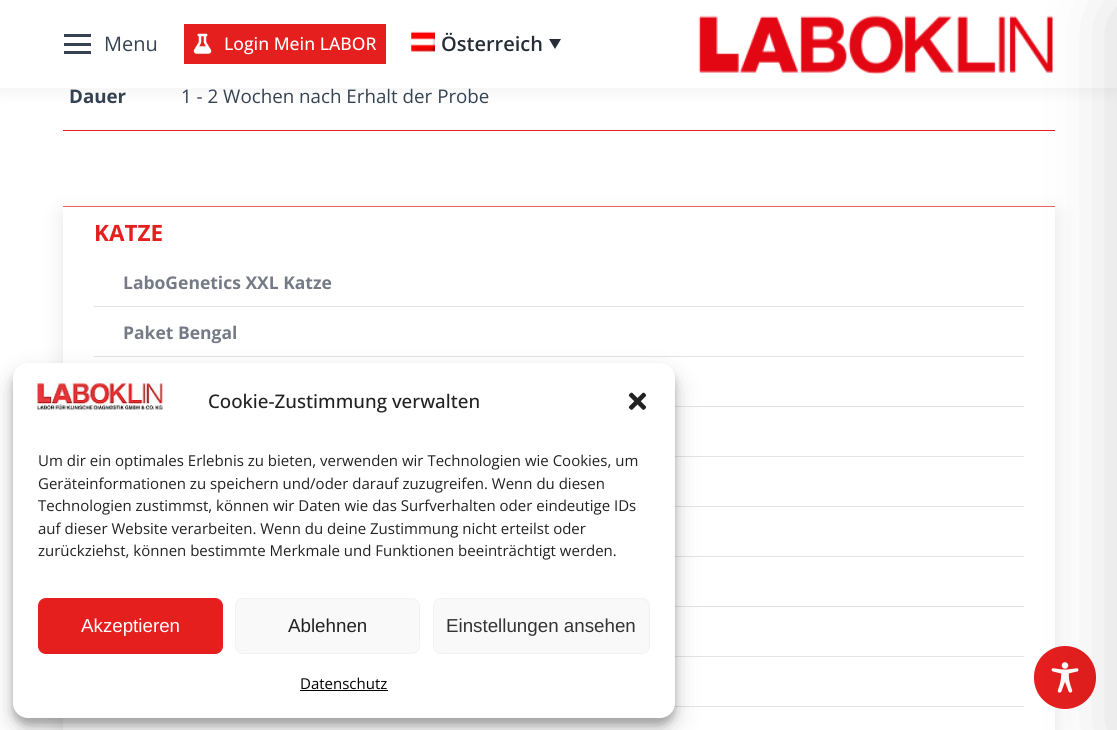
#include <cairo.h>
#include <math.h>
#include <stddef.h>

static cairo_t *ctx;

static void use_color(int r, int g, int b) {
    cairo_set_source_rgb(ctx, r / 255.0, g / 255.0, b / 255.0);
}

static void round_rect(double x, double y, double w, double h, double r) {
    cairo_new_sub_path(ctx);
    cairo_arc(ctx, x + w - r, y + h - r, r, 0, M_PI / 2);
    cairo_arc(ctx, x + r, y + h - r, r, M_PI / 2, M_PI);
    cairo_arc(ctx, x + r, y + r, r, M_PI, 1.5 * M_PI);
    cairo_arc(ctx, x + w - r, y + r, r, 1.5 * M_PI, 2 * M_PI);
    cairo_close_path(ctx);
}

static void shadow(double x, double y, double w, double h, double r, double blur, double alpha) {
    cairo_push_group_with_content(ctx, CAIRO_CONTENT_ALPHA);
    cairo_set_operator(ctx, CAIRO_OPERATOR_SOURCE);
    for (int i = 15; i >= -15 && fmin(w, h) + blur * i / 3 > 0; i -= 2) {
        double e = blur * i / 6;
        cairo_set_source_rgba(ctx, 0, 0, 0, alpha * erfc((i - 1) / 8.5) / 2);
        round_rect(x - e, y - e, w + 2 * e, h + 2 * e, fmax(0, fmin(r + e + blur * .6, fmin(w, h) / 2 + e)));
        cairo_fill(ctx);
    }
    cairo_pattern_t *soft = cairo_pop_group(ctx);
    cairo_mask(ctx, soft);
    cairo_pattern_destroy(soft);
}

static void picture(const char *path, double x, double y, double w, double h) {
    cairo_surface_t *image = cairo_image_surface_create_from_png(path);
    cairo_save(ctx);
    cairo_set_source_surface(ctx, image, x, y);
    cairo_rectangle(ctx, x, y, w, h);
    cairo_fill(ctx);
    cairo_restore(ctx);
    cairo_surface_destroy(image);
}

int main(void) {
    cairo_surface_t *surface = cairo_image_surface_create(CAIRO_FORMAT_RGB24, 1117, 730);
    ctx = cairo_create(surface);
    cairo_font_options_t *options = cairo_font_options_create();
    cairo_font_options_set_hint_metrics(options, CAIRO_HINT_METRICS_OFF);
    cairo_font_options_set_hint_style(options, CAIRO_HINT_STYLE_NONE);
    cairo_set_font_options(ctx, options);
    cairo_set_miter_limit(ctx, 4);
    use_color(255, 255, 255);
    cairo_paint(ctx);
    use_color(0, 0, 0);
    shadow(-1, -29, 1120, 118, 0, 9.5, 0.07);
    use_color(255, 255, 255);
    cairo_rectangle(ctx, 0, 0, 1117, 88);
    cairo_fill(ctx);
    use_color(52, 66, 81);
    cairo_rectangle(ctx, 64, 34, 27, 3);
    cairo_fill(ctx);
    cairo_rectangle(ctx, 64, 43, 27, 3);
    cairo_fill(ctx);
    cairo_rectangle(ctx, 64, 51, 27, 3);
    cairo_fill(ctx);
    cairo_select_font_face(ctx, "Open Sans", CAIRO_FONT_SLANT_NORMAL, CAIRO_FONT_WEIGHT_NORMAL);
    cairo_set_font_size(ctx, 20);
    cairo_move_to(ctx, 104, 51);
    cairo_show_text(ctx, "Menu");
    use_color(229, 30, 30);
    cairo_rectangle(ctx, 184, 24, 202, 40);
    cairo_fill(ctx);
    picture("img1.png", 193, 33, 19, 21);
    cairo_select_font_face(ctx, "Open Sans Medium", CAIRO_FONT_SLANT_NORMAL, CAIRO_FONT_WEIGHT_NORMAL);
    cairo_set_font_size(ctx, 17.5);
    use_color(255, 255, 255);
    cairo_move_to(ctx, 224, 50);
    cairo_show_text(ctx, "Login Mein LABOR");
    picture("img2.png", 411, 31, 24, 21);
    cairo_select_font_face(ctx, "Open Sans SemiBold", CAIRO_FONT_SLANT_NORMAL, CAIRO_FONT_WEIGHT_NORMAL);
    cairo_set_font_size(ctx, 20);
    use_color(38, 45, 55);
    cairo_move_to(ctx, 441, 51);
    cairo_show_text(ctx, "Österreich");
    cairo_new_path(ctx);
    cairo_move_to(ctx, 549, 39);
    cairo_line_to(ctx, 561, 39);
    cairo_line_to(ctx, 555, 49);
    cairo_close_path(ctx);
    cairo_fill(ctx);
    picture("img3.png", 698, 15, 355, 59);
    use_color(229, 30, 30);
    cairo_rectangle(ctx, 63, 130, 992, 1);
    cairo_fill(ctx);
    cairo_select_font_face(ctx, "Open Sans", CAIRO_FONT_SLANT_NORMAL, CAIRO_FONT_WEIGHT_BOLD);
    cairo_set_font_size(ctx, 18.75);
    use_color(52, 66, 81);
    cairo_move_to(ctx, 69, 103);
    cairo_show_text(ctx, "Dauer");
    cairo_select_font_face(ctx, "Open Sans", CAIRO_FONT_SLANT_NORMAL, CAIRO_FONT_WEIGHT_NORMAL);
    cairo_move_to(ctx, 181, 103);
    cairo_show_text(ctx, "1 - 2 Wochen nach Erhalt der Probe");
    cairo_save(ctx);
    cairo_set_fill_rule(ctx, CAIRO_FILL_RULE_EVEN_ODD);
    cairo_new_path(ctx);
    cairo_move_to(ctx, 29, 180);
    cairo_line_to(ctx, 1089, 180);
    cairo_line_to(ctx, 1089, 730);
    cairo_line_to(ctx, 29, 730);
    cairo_close_path(ctx);
    cairo_move_to(ctx, 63, 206);
    cairo_line_to(ctx, 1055, 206);
    cairo_line_to(ctx, 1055, 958);
    cairo_line_to(ctx, 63, 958);
    cairo_close_path(ctx);
    cairo_clip(ctx);
    use_color(0, 0, 0);
    shadow(63, 214, 992, 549, 0, 11, 0.1);
    cairo_restore(ctx);
    use_color(236, 97, 97);
    cairo_rectangle(ctx, 63, 206, 992, 1);
    cairo_fill(ctx);
    cairo_select_font_face(ctx, "Open Sans", CAIRO_FONT_SLANT_NORMAL, CAIRO_FONT_WEIGHT_BOLD);
    cairo_set_font_size(ctx, 22.5);
    use_color(229, 30, 30);
    cairo_move_to(ctx, 94, 241);
    cairo_show_text(ctx, "KATZE");
    cairo_set_font_size(ctx, 17.5);
    use_color(117, 122, 135);
    cairo_move_to(ctx, 123, 289);
    cairo_show_text(ctx, "LaboGenetics XXL Katze");
    use_color(225, 227, 229);
    cairo_rectangle(ctx, 94, 306, 930, 1);
    cairo_fill(ctx);
    use_color(117, 122, 135);
    cairo_move_to(ctx, 123, 339);
    cairo_show_text(ctx, "Paket Bengal");
    use_color(225, 227, 229);
    cairo_rectangle(ctx, 94, 356, 930, 1);
    cairo_fill(ctx);
    cairo_rectangle(ctx, 675, 406, 349, 1);
    cairo_fill(ctx);
    cairo_rectangle(ctx, 675, 456, 349, 1);
    cairo_fill(ctx);
    cairo_rectangle(ctx, 675, 506, 349, 1);
    cairo_fill(ctx);
    cairo_rectangle(ctx, 675, 556, 349, 1);
    cairo_fill(ctx);
    cairo_rectangle(ctx, 675, 606, 349, 1);
    cairo_fill(ctx);
    cairo_rectangle(ctx, 675, 656, 349, 1);
    cairo_fill(ctx);
    cairo_rectangle(ctx, 674, 706, 350, 1);
    cairo_fill(ctx);
    use_color(229, 30, 30);
    round_rect(1034, 646, 62, 63, 31);
    cairo_fill(ctx);
    picture("img6.png", 1051, 662, 28, 31);
    use_color(0, 0, 0);
    shadow(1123, 13, 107, 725, 0, 37.5, 0.2);
    shadow(13, 370, 662, 355, 15, 4, 0.23);
    shadow(13, 375, 662, 355, 15, 12.5, 0.19);
    use_color(255, 255, 255);
    round_rect(13, 363, 662, 355, 15);
    cairo_fill(ctx);
    picture("img4.png", 37, 383, 126, 27);
    cairo_select_font_face(ctx, "Open Sans Medium", CAIRO_FONT_SLANT_NORMAL, CAIRO_FONT_WEIGHT_NORMAL);
    cairo_set_font_size(ctx, 18.75);
    use_color(34, 34, 34);
    cairo_move_to(ctx, 208, 408);
    cairo_show_text(ctx, "Cookie-Zustimmung verwalten");
    picture("img5.png", 628, 392, 19, 18);
    cairo_select_font_face(ctx, "Open Sans", CAIRO_FONT_SLANT_NORMAL, CAIRO_FONT_WEIGHT_NORMAL);
    cairo_set_font_size(ctx, 15);
    cairo_move_to(ctx, 38, 466);
    cairo_show_text(ctx, "Um dir ein optimales Erlebnis zu bieten, verwenden wir Technologien wie Cookies, um");
    cairo_move_to(ctx, 38, 489);
    cairo_show_text(ctx, "Geräteinformationen zu speichern und/oder darauf zuzugreifen. Wenn du diesen");
    cairo_move_to(ctx, 38, 511);
    cairo_show_text(ctx, "Technologien zustimmst, können wir Daten wie das Surfverhalten oder eindeutige IDs");
    cairo_move_to(ctx, 38, 534);
    cairo_show_text(ctx, "auf dieser Website verarbeiten. Wenn du deine Zustimmung nicht erteilst oder");
    cairo_move_to(ctx, 38, 556);
    cairo_show_text(ctx, "zurückziehst, können bestimmte Merkmale und Funktionen beeinträchtigt werden.");
    use_color(229, 30, 30);
    round_rect(38.5, 598.5, 184, 55, 7.5);
    cairo_fill_preserve(ctx);
    cairo_set_line_width(ctx, 1);
    cairo_stroke(ctx);
    cairo_select_font_face(ctx, "Liberation Sans", CAIRO_FONT_SLANT_NORMAL, CAIRO_FONT_WEIGHT_NORMAL);
    cairo_set_font_size(ctx, 18.75);
    use_color(255, 255, 255);
    cairo_move_to(ctx, 81, 632);
    cairo_show_text(ctx, "Akzeptieren");
    use_color(249, 249, 249);
    round_rect(235.5, 598.5, 184, 55, 7.5);
    cairo_fill_preserve(ctx);
    use_color(242, 242, 242);
    cairo_stroke(ctx);
    use_color(34, 34, 34);
    cairo_move_to(ctx, 288, 632);
    cairo_show_text(ctx, "Ablehnen");
    use_color(249, 249, 249);
    round_rect(433.5, 598.5, 216, 55, 7.5);
    cairo_fill_preserve(ctx);
    use_color(242, 242, 242);
    cairo_stroke(ctx);
    use_color(51, 51, 51);
    cairo_move_to(ctx, 446, 632);
    cairo_show_text(ctx, "Einstellungen ansehen");
    cairo_select_font_face(ctx, "Open Sans", CAIRO_FONT_SLANT_NORMAL, CAIRO_FONT_WEIGHT_NORMAL);
    cairo_set_font_size(ctx, 15);
    use_color(0, 0, 0);
    cairo_move_to(ctx, 300, 689);
    cairo_show_text(ctx, "Datenschutz");
    cairo_rectangle(ctx, 300, 690, 88, 1);
    cairo_fill(ctx);
    cairo_surface_write_to_png(surface, "result.png");
    cairo_font_options_destroy(options);
    cairo_destroy(ctx);
    cairo_surface_destroy(surface);
    return 0;
}
